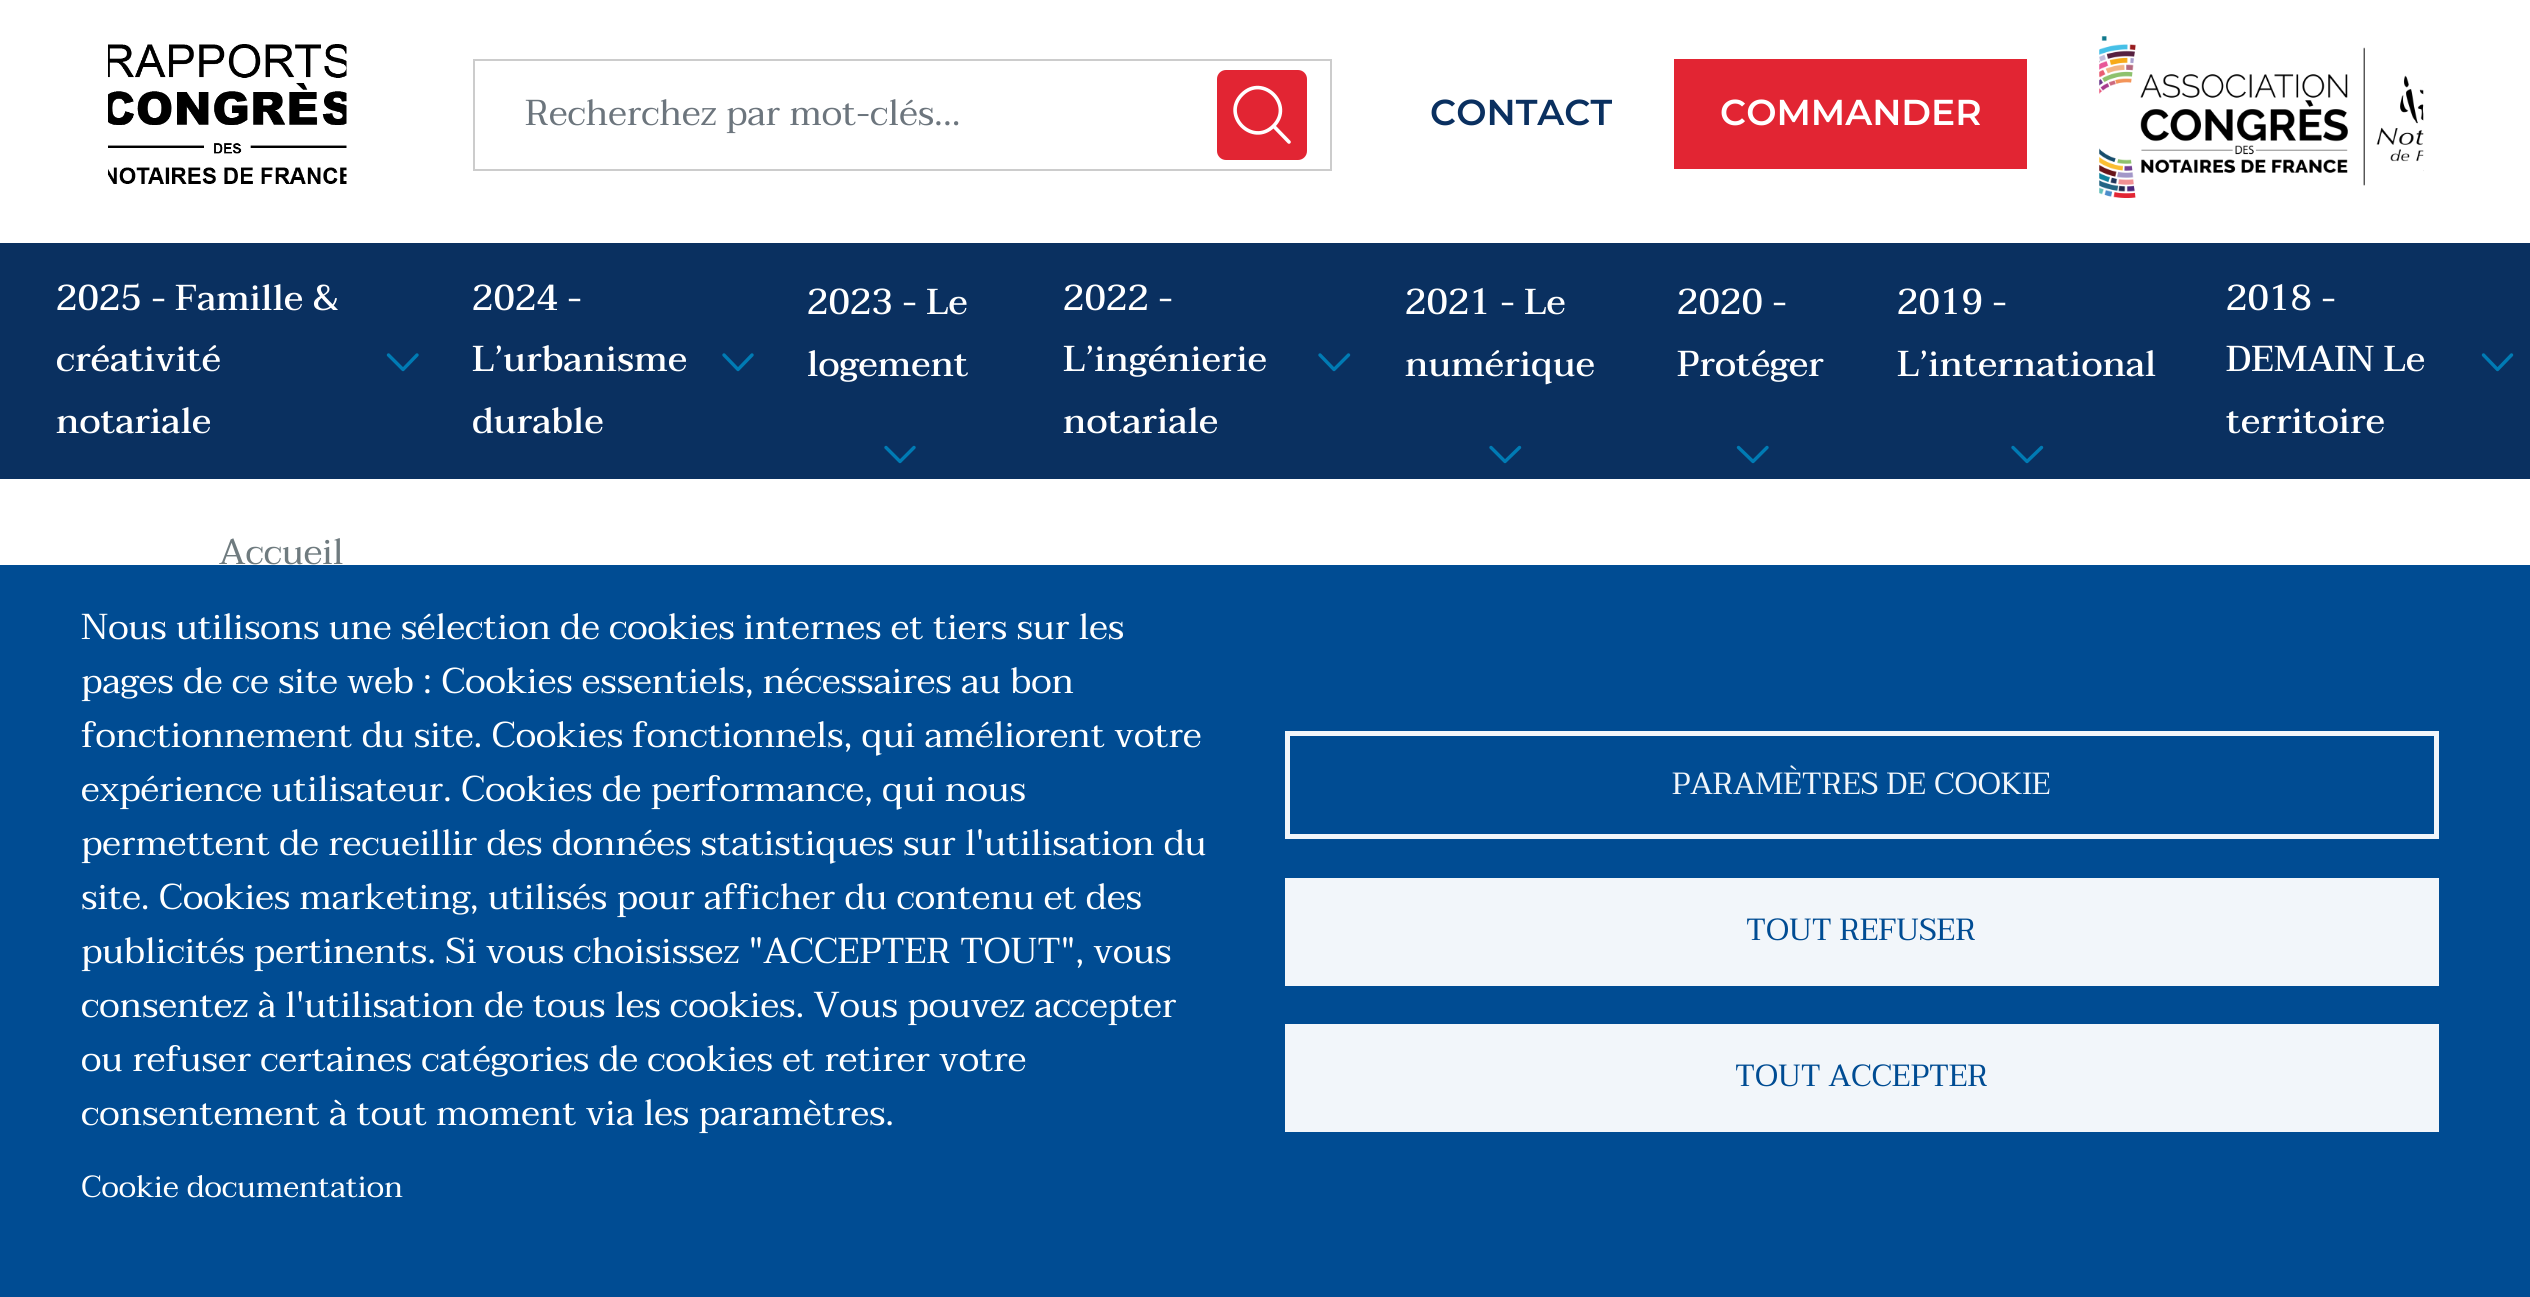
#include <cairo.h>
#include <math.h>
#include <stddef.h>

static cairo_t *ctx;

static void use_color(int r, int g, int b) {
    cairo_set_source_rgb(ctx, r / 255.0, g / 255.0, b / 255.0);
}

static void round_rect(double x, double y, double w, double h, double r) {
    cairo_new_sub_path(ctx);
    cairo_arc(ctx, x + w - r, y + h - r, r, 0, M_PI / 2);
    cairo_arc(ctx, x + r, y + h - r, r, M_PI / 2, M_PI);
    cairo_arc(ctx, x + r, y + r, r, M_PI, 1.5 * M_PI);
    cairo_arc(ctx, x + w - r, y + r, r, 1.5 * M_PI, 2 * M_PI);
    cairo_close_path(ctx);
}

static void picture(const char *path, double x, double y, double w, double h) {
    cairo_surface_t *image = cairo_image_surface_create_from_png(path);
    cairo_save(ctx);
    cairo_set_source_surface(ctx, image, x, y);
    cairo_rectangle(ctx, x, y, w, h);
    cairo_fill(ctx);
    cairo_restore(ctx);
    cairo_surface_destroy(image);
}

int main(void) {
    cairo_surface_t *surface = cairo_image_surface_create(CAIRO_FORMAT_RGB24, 2530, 1297);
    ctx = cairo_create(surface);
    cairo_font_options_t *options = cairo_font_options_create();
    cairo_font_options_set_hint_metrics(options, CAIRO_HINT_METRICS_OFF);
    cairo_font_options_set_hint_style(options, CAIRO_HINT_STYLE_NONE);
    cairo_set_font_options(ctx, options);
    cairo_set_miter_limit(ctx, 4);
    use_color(255, 255, 255);
    cairo_paint(ctx);
    picture("img1.png", 108, 44, 239, 140);
    cairo_rectangle(ctx, 474, 60, 857, 110);
    use_color(204, 204, 204);
    cairo_stroke(ctx);
    cairo_select_font_face(ctx, "Taviraj", CAIRO_FONT_SLANT_NORMAL, CAIRO_FONT_WEIGHT_NORMAL);
    cairo_set_font_size(ctx, 36);
    use_color(108, 117, 125);
    cairo_move_to(ctx, 525, 125);
    cairo_show_text(ctx, "Recherchez par mot-clés...");
    use_color(226, 37, 51);
    round_rect(1217, 70, 90, 90, 9);
    cairo_fill(ctx);
    cairo_new_path(ctx);
    cairo_move_to(ctx, 1289, 142);
    cairo_line_to(ctx, 1273.5, 126);
    cairo_move_to(ctx, 1273.5, 126);
    cairo_curve_to(ctx, 1294.5, 105, 1263, 73.5, 1242, 94.5);
    cairo_curve_to(ctx, 1221, 115.5, 1252.5, 147, 1273.5, 126);
    cairo_close_path(ctx);
    use_color(255, 255, 255);
    cairo_set_line_width(ctx, 3.6);
    cairo_set_line_cap(ctx, CAIRO_LINE_CAP_ROUND);
    cairo_set_line_join(ctx, CAIRO_LINE_JOIN_ROUND);
    cairo_stroke(ctx);
    cairo_select_font_face(ctx, "Montserrat SemiBold", CAIRO_FONT_SLANT_NORMAL, CAIRO_FONT_WEIGHT_NORMAL);
    use_color(10, 48, 96);
    cairo_move_to(ctx, 1430, 125);
    cairo_show_text(ctx, "CONTACT");
    use_color(226, 37, 51);
    cairo_rectangle(ctx, 1674, 59, 353, 110);
    cairo_fill(ctx);
    use_color(255, 255, 255);
    cairo_move_to(ctx, 1720, 125);
    cairo_show_text(ctx, "COMMANDER");
    picture("img2.png", 2099, 36, 325, 162);
    use_color(10, 48, 96);
    cairo_rectangle(ctx, 0, 243, 2530, 236);
    cairo_fill(ctx);
    cairo_select_font_face(ctx, "Taviraj Medium", CAIRO_FONT_SLANT_NORMAL, CAIRO_FONT_WEIGHT_NORMAL);
    use_color(255, 255, 255);
    cairo_move_to(ctx, 56, 310);
    cairo_show_text(ctx, "2025 - Famille &");
    cairo_move_to(ctx, 56, 371);
    cairo_show_text(ctx, "créativité");
    cairo_move_to(ctx, 56, 433);
    cairo_show_text(ctx, "notariale");
    cairo_new_path(ctx);
    cairo_move_to(ctx, 388.5, 355);
    cairo_line_to(ctx, 403, 369.5);
    cairo_line_to(ctx, 417, 355);
    use_color(0, 123, 180);
    cairo_set_line_width(ctx, 3.4);
    cairo_stroke(ctx);
    use_color(255, 255, 255);
    cairo_move_to(ctx, 472, 310);
    cairo_show_text(ctx, "2024 -");
    cairo_move_to(ctx, 472, 371);
    cairo_show_text(ctx, "L’urbanisme");
    cairo_move_to(ctx, 472, 433);
    cairo_show_text(ctx, "durable");
    cairo_new_path(ctx);
    cairo_move_to(ctx, 724, 355);
    cairo_line_to(ctx, 738, 369.5);
    cairo_line_to(ctx, 752, 355);
    use_color(0, 123, 180);
    cairo_stroke(ctx);
    use_color(255, 255, 255);
    cairo_move_to(ctx, 807, 314);
    cairo_show_text(ctx, "2023 - Le");
    cairo_move_to(ctx, 807, 376);
    cairo_show_text(ctx, "logement");
    cairo_new_path(ctx);
    cairo_move_to(ctx, 886, 447.5);
    cairo_line_to(ctx, 900, 461.5);
    cairo_line_to(ctx, 914, 447.5);
    use_color(0, 123, 180);
    cairo_stroke(ctx);
    use_color(255, 255, 255);
    cairo_move_to(ctx, 1063, 310);
    cairo_show_text(ctx, "2022 -");
    cairo_move_to(ctx, 1063, 371);
    cairo_show_text(ctx, "L’ingénierie");
    cairo_move_to(ctx, 1063, 433);
    cairo_show_text(ctx, "notariale");
    cairo_new_path(ctx);
    cairo_move_to(ctx, 1320, 355);
    cairo_line_to(ctx, 1334, 369.5);
    cairo_line_to(ctx, 1348.5, 355);
    use_color(0, 123, 180);
    cairo_stroke(ctx);
    use_color(255, 255, 255);
    cairo_move_to(ctx, 1405, 314);
    cairo_show_text(ctx, "2021 - Le");
    cairo_move_to(ctx, 1405, 376);
    cairo_show_text(ctx, "numérique");
    cairo_new_path(ctx);
    cairo_move_to(ctx, 1491, 447.5);
    cairo_line_to(ctx, 1505, 461.5);
    cairo_line_to(ctx, 1519.5, 447.5);
    use_color(0, 123, 180);
    cairo_stroke(ctx);
    use_color(255, 255, 255);
    cairo_move_to(ctx, 1677, 314);
    cairo_show_text(ctx, "2020 -");
    cairo_move_to(ctx, 1677, 376);
    cairo_show_text(ctx, "Protéger");
    cairo_new_path(ctx);
    cairo_move_to(ctx, 1738.5, 447.5);
    cairo_line_to(ctx, 1753, 461.5);
    cairo_line_to(ctx, 1767, 447.5);
    use_color(0, 123, 180);
    cairo_stroke(ctx);
    use_color(255, 255, 255);
    cairo_move_to(ctx, 1897, 314);
    cairo_show_text(ctx, "2019 -");
    cairo_move_to(ctx, 1897, 376);
    cairo_show_text(ctx, "L’international");
    cairo_new_path(ctx);
    cairo_move_to(ctx, 2013, 447.5);
    cairo_line_to(ctx, 2027, 461.5);
    cairo_line_to(ctx, 2041.5, 447.5);
    use_color(0, 123, 180);
    cairo_stroke(ctx);
    use_color(255, 255, 255);
    cairo_move_to(ctx, 2226, 310);
    cairo_show_text(ctx, "2018 -");
    cairo_move_to(ctx, 2226, 371);
    cairo_show_text(ctx, "DEMAIN Le");
    cairo_move_to(ctx, 2226, 433);
    cairo_show_text(ctx, "territoire");
    cairo_new_path(ctx);
    cairo_move_to(ctx, 2483.5, 355);
    cairo_line_to(ctx, 2497.5, 369.5);
    cairo_line_to(ctx, 2511.5, 355);
    use_color(0, 123, 180);
    cairo_stroke(ctx);
    cairo_select_font_face(ctx, "Taviraj", CAIRO_FONT_SLANT_NORMAL, CAIRO_FONT_WEIGHT_NORMAL);
    use_color(111, 123, 127);
    cairo_move_to(ctx, 219, 564);
    cairo_show_text(ctx, "Accueil");
    use_color(0, 76, 147);
    cairo_rectangle(ctx, 0, 565, 2530, 732);
    cairo_fill(ctx);
    use_color(255, 255, 255);
    cairo_move_to(ctx, 81, 639);
    cairo_show_text(ctx, "Nous utilisons une sélection de cookies internes et tiers sur les");
    cairo_move_to(ctx, 81, 693);
    cairo_show_text(ctx, "pages de ce site web : Cookies essentiels, nécessaires au bon");
    cairo_move_to(ctx, 81, 747);
    cairo_show_text(ctx, "fonctionnement du site. Cookies fonctionnels, qui améliorent votre");
    cairo_move_to(ctx, 81, 801);
    cairo_show_text(ctx, "expérience utilisateur. Cookies de performance, qui nous");
    cairo_move_to(ctx, 81, 855);
    cairo_show_text(ctx, "permettent de recueillir des données statistiques sur l'utilisation du");
    cairo_move_to(ctx, 81, 909);
    cairo_show_text(ctx, "site. Cookies marketing, utilisés pour afficher du contenu et des");
    cairo_move_to(ctx, 81, 963);
    cairo_show_text(ctx, "publicités pertinents. Si vous choisissez \"ACCEPTER TOUT\", vous");
    cairo_move_to(ctx, 81, 1017);
    cairo_show_text(ctx, "consentez à l'utilisation de tous les cookies. Vous pouvez accepter");
    cairo_move_to(ctx, 81, 1071);
    cairo_show_text(ctx, "ou refuser certaines catégories de cookies et retirer votre");
    cairo_move_to(ctx, 81, 1125);
    cairo_show_text(ctx, "consentement à tout moment via les paramètres.");
    cairo_set_font_size(ctx, 30.6);
    cairo_move_to(ctx, 81, 1197);
    cairo_show_text(ctx, "Cookie documentation");
    cairo_rectangle(ctx, 1287.5, 733.5, 1149, 103);
    use_color(242, 246, 250);
    cairo_set_line_width(ctx, 5);
    cairo_set_line_cap(ctx, CAIRO_LINE_CAP_BUTT);
    cairo_set_line_join(ctx, CAIRO_LINE_JOIN_MITER);
    cairo_stroke(ctx);
    cairo_move_to(ctx, 1672, 794);
    cairo_show_text(ctx, "PARAMÈTRES DE COOKIE");
    cairo_rectangle(ctx, 1285, 878, 1154, 108);
    cairo_fill(ctx);
    use_color(0, 76, 147);
    cairo_move_to(ctx, 1746, 940);
    cairo_show_text(ctx, "TOUT REFUSER");
    use_color(242, 246, 250);
    cairo_rectangle(ctx, 1285, 1024, 1154, 108);
    cairo_fill(ctx);
    use_color(0, 76, 147);
    cairo_move_to(ctx, 1735, 1086);
    cairo_show_text(ctx, "TOUT ACCEPTER");
    cairo_surface_write_to_png(surface, "result.png");
    cairo_font_options_destroy(options);
    cairo_destroy(ctx);
    cairo_surface_destroy(surface);
    return 0;
}
